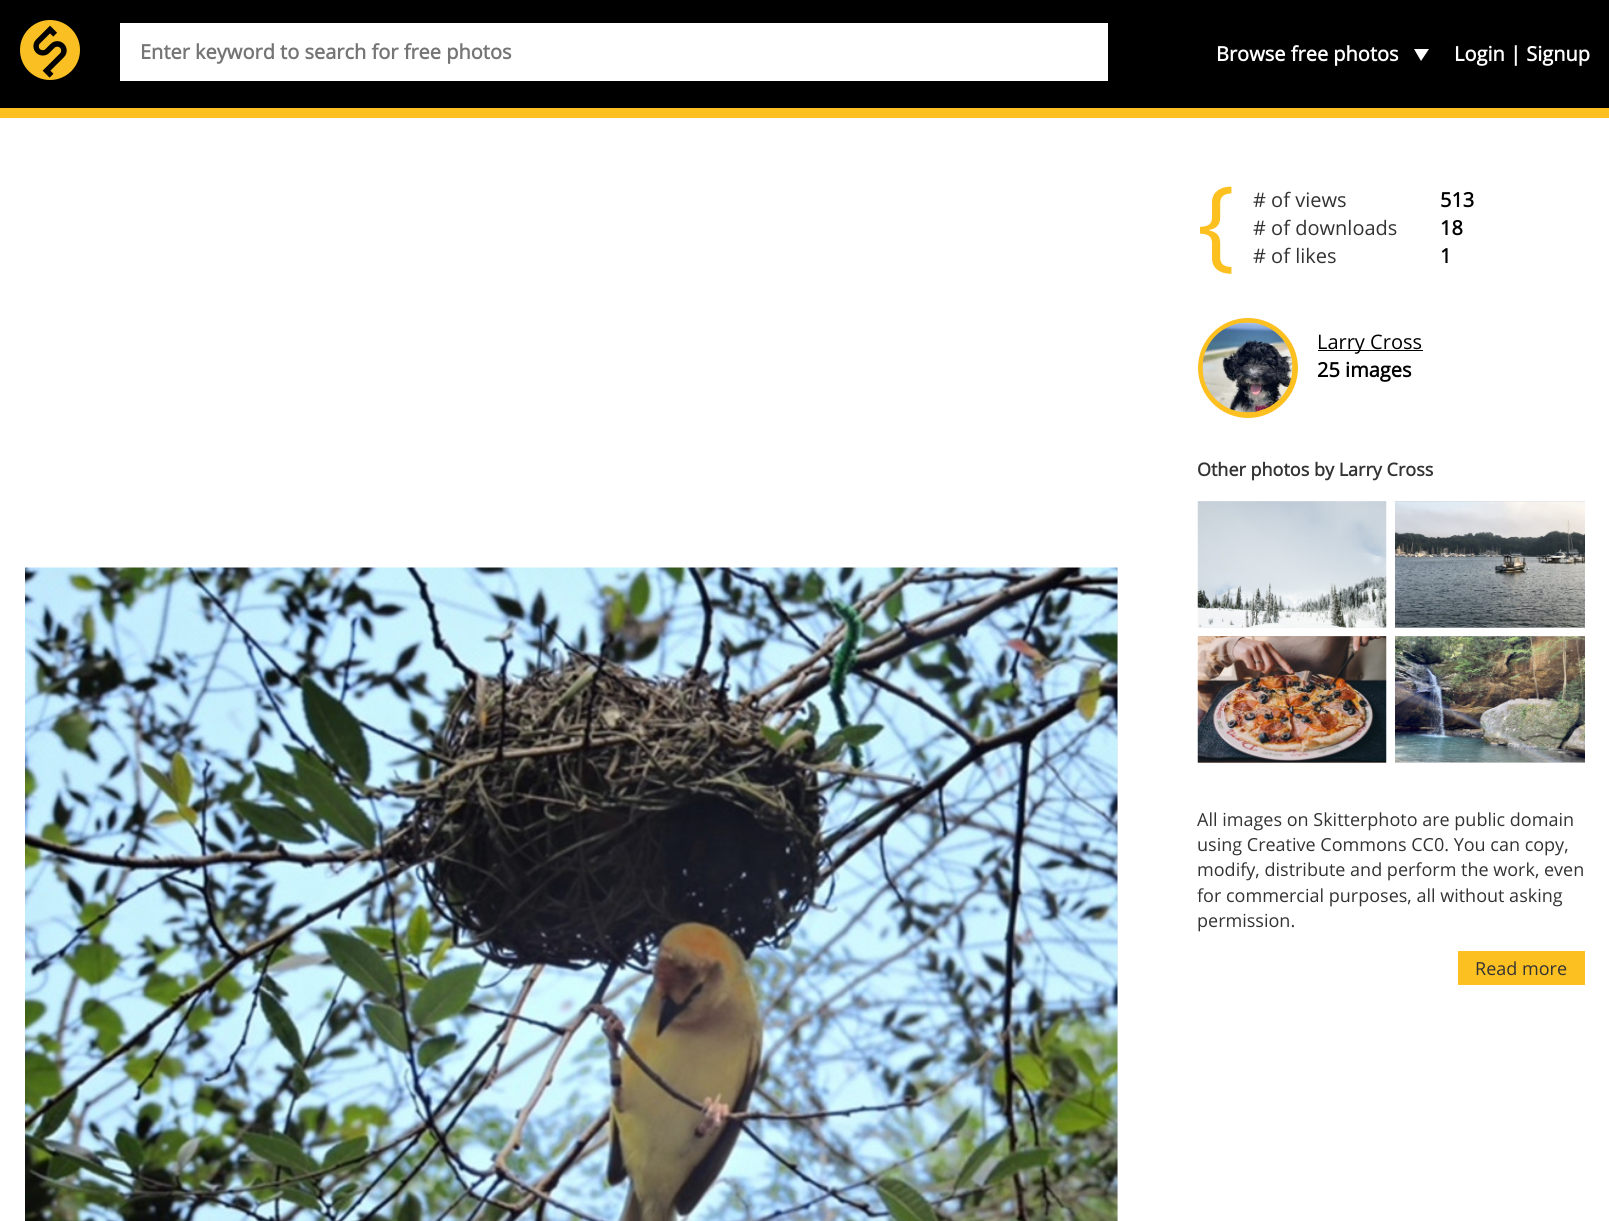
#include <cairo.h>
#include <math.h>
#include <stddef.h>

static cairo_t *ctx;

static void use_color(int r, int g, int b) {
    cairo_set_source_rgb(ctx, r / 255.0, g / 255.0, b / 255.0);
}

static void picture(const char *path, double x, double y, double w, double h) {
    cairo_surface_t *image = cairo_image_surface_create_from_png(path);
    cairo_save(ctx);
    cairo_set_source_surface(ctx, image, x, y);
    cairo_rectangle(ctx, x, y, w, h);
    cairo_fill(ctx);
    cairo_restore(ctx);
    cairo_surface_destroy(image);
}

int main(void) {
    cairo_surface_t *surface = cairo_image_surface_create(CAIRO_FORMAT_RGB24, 1609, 1221);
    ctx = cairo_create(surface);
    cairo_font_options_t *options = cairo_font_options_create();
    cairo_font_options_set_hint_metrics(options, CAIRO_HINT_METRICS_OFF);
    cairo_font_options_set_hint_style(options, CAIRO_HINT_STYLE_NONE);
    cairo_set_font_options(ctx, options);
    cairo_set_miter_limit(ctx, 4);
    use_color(255, 255, 255);
    cairo_paint(ctx);
    use_color(0, 0, 0);
    cairo_rectangle(ctx, 0, 0, 1609, 108);
    cairo_fill(ctx);
    use_color(252, 192, 33);
    cairo_rectangle(ctx, 0, 108, 1609, 10);
    cairo_fill(ctx);
    picture("img1.png", 20, 20, 60, 60);
    use_color(255, 255, 255);
    cairo_rectangle(ctx, 120, 23, 988, 58);
    cairo_fill(ctx);
    cairo_select_font_face(ctx, "Open Sans", CAIRO_FONT_SLANT_NORMAL, CAIRO_FONT_WEIGHT_BOLD);
    cairo_set_font_size(ctx, 20);
    use_color(117, 117, 117);
    cairo_move_to(ctx, 140, 59);
    cairo_show_text(ctx, "Enter keyword to search for free photos");
    use_color(255, 255, 255);
    cairo_move_to(ctx, 1216, 61);
    cairo_show_text(ctx, "Browse free photos");
    cairo_new_path(ctx);
    cairo_move_to(ctx, 1414, 49);
    cairo_line_to(ctx, 1429, 49);
    cairo_line_to(ctx, 1421, 61);
    cairo_close_path(ctx);
    cairo_fill(ctx);
    cairo_move_to(ctx, 1454, 61);
    cairo_show_text(ctx, "Login | Signup");
    use_color(238, 238, 238);
    cairo_rectangle(ctx, 1117, 568, 1, 653);
    cairo_fill(ctx);
    picture("img2.png", 25, 567, 1093, 654);
    cairo_select_font_face(ctx, "Open Sans", CAIRO_FONT_SLANT_NORMAL, CAIRO_FONT_WEIGHT_NORMAL);
    cairo_set_font_size(ctx, 100);
    use_color(252, 192, 33);
    cairo_move_to(ctx, 1197, 258);
    cairo_show_text(ctx, "{");
    cairo_set_font_size(ctx, 20);
    use_color(51, 51, 51);
    cairo_move_to(ctx, 1253, 207);
    cairo_show_text(ctx, "# of views");
    cairo_select_font_face(ctx, "Open Sans", CAIRO_FONT_SLANT_NORMAL, CAIRO_FONT_WEIGHT_BOLD);
    use_color(0, 0, 0);
    cairo_move_to(ctx, 1440, 207);
    cairo_show_text(ctx, "513");
    cairo_select_font_face(ctx, "Open Sans", CAIRO_FONT_SLANT_NORMAL, CAIRO_FONT_WEIGHT_NORMAL);
    use_color(51, 51, 51);
    cairo_move_to(ctx, 1253, 235);
    cairo_show_text(ctx, "# of downloads");
    cairo_select_font_face(ctx, "Open Sans", CAIRO_FONT_SLANT_NORMAL, CAIRO_FONT_WEIGHT_BOLD);
    use_color(0, 0, 0);
    cairo_move_to(ctx, 1440, 235);
    cairo_show_text(ctx, "18");
    cairo_select_font_face(ctx, "Open Sans", CAIRO_FONT_SLANT_NORMAL, CAIRO_FONT_WEIGHT_NORMAL);
    use_color(51, 51, 51);
    cairo_move_to(ctx, 1253, 263);
    cairo_show_text(ctx, "# of likes");
    cairo_select_font_face(ctx, "Open Sans", CAIRO_FONT_SLANT_NORMAL, CAIRO_FONT_WEIGHT_BOLD);
    use_color(0, 0, 0);
    cairo_move_to(ctx, 1440, 263);
    cairo_show_text(ctx, "1");
    use_color(252, 192, 33);
    cairo_new_path(ctx);
    cairo_arc(ctx, 1248, 368, 47.5, 0, 2 * M_PI);
    cairo_fill_preserve(ctx);
    cairo_set_line_width(ctx, 5);
    cairo_stroke(ctx);
    picture("img3.png", 1202, 322, 91, 91);
    use_color(0, 0, 0);
    cairo_rectangle(ctx, 1318, 350, 105, 1);
    cairo_fill(ctx);
    cairo_select_font_face(ctx, "Open Sans", CAIRO_FONT_SLANT_NORMAL, CAIRO_FONT_WEIGHT_NORMAL);
    cairo_move_to(ctx, 1317, 349);
    cairo_show_text(ctx, "Larry Cross");
    cairo_select_font_face(ctx, "Open Sans", CAIRO_FONT_SLANT_NORMAL, CAIRO_FONT_WEIGHT_BOLD);
    cairo_move_to(ctx, 1317, 377);
    cairo_show_text(ctx, "25 images");
    cairo_set_font_size(ctx, 18);
    use_color(51, 51, 51);
    cairo_move_to(ctx, 1197, 476);
    cairo_show_text(ctx, "Other photos by Larry Cross");
    use_color(238, 238, 238);
    cairo_rectangle(ctx, 1198, 501, 188, 127);
    cairo_fill(ctx);
    picture("img4.png", 1197, 501, 190, 127);
    use_color(190, 194, 195);
    cairo_rectangle(ctx, 1395, 501, 190, 127);
    cairo_fill(ctx);
    picture("img5.png", 1395, 501, 190, 127);
    use_color(195, 165, 149);
    cairo_rectangle(ctx, 1198, 636, 188, 127);
    cairo_fill(ctx);
    picture("img6.png", 1197, 636, 190, 127);
    use_color(238, 238, 238);
    cairo_rectangle(ctx, 1395, 636, 190, 127);
    cairo_fill(ctx);
    picture("img7.png", 1395, 636, 190, 127);
    cairo_select_font_face(ctx, "Open Sans", CAIRO_FONT_SLANT_NORMAL, CAIRO_FONT_WEIGHT_NORMAL);
    use_color(51, 51, 51);
    cairo_move_to(ctx, 1197, 826);
    cairo_show_text(ctx, "All images on Skitterphoto are public domain");
    cairo_move_to(ctx, 1197, 851);
    cairo_show_text(ctx, "using Creative Commons CC0. You can copy,");
    cairo_move_to(ctx, 1197, 876);
    cairo_show_text(ctx, "modify, distribute and perform the work, even");
    cairo_move_to(ctx, 1197, 902);
    cairo_show_text(ctx, "for commercial purposes, all without asking");
    cairo_move_to(ctx, 1197, 927);
    cairo_show_text(ctx, "permission.");
    use_color(252, 192, 33);
    cairo_rectangle(ctx, 1458, 951, 127, 34);
    cairo_fill(ctx);
    use_color(51, 51, 51);
    cairo_move_to(ctx, 1475, 975);
    cairo_show_text(ctx, "Read more");
    cairo_surface_write_to_png(surface, "result.png");
    cairo_font_options_destroy(options);
    cairo_destroy(ctx);
    cairo_surface_destroy(surface);
    return 0;
}
